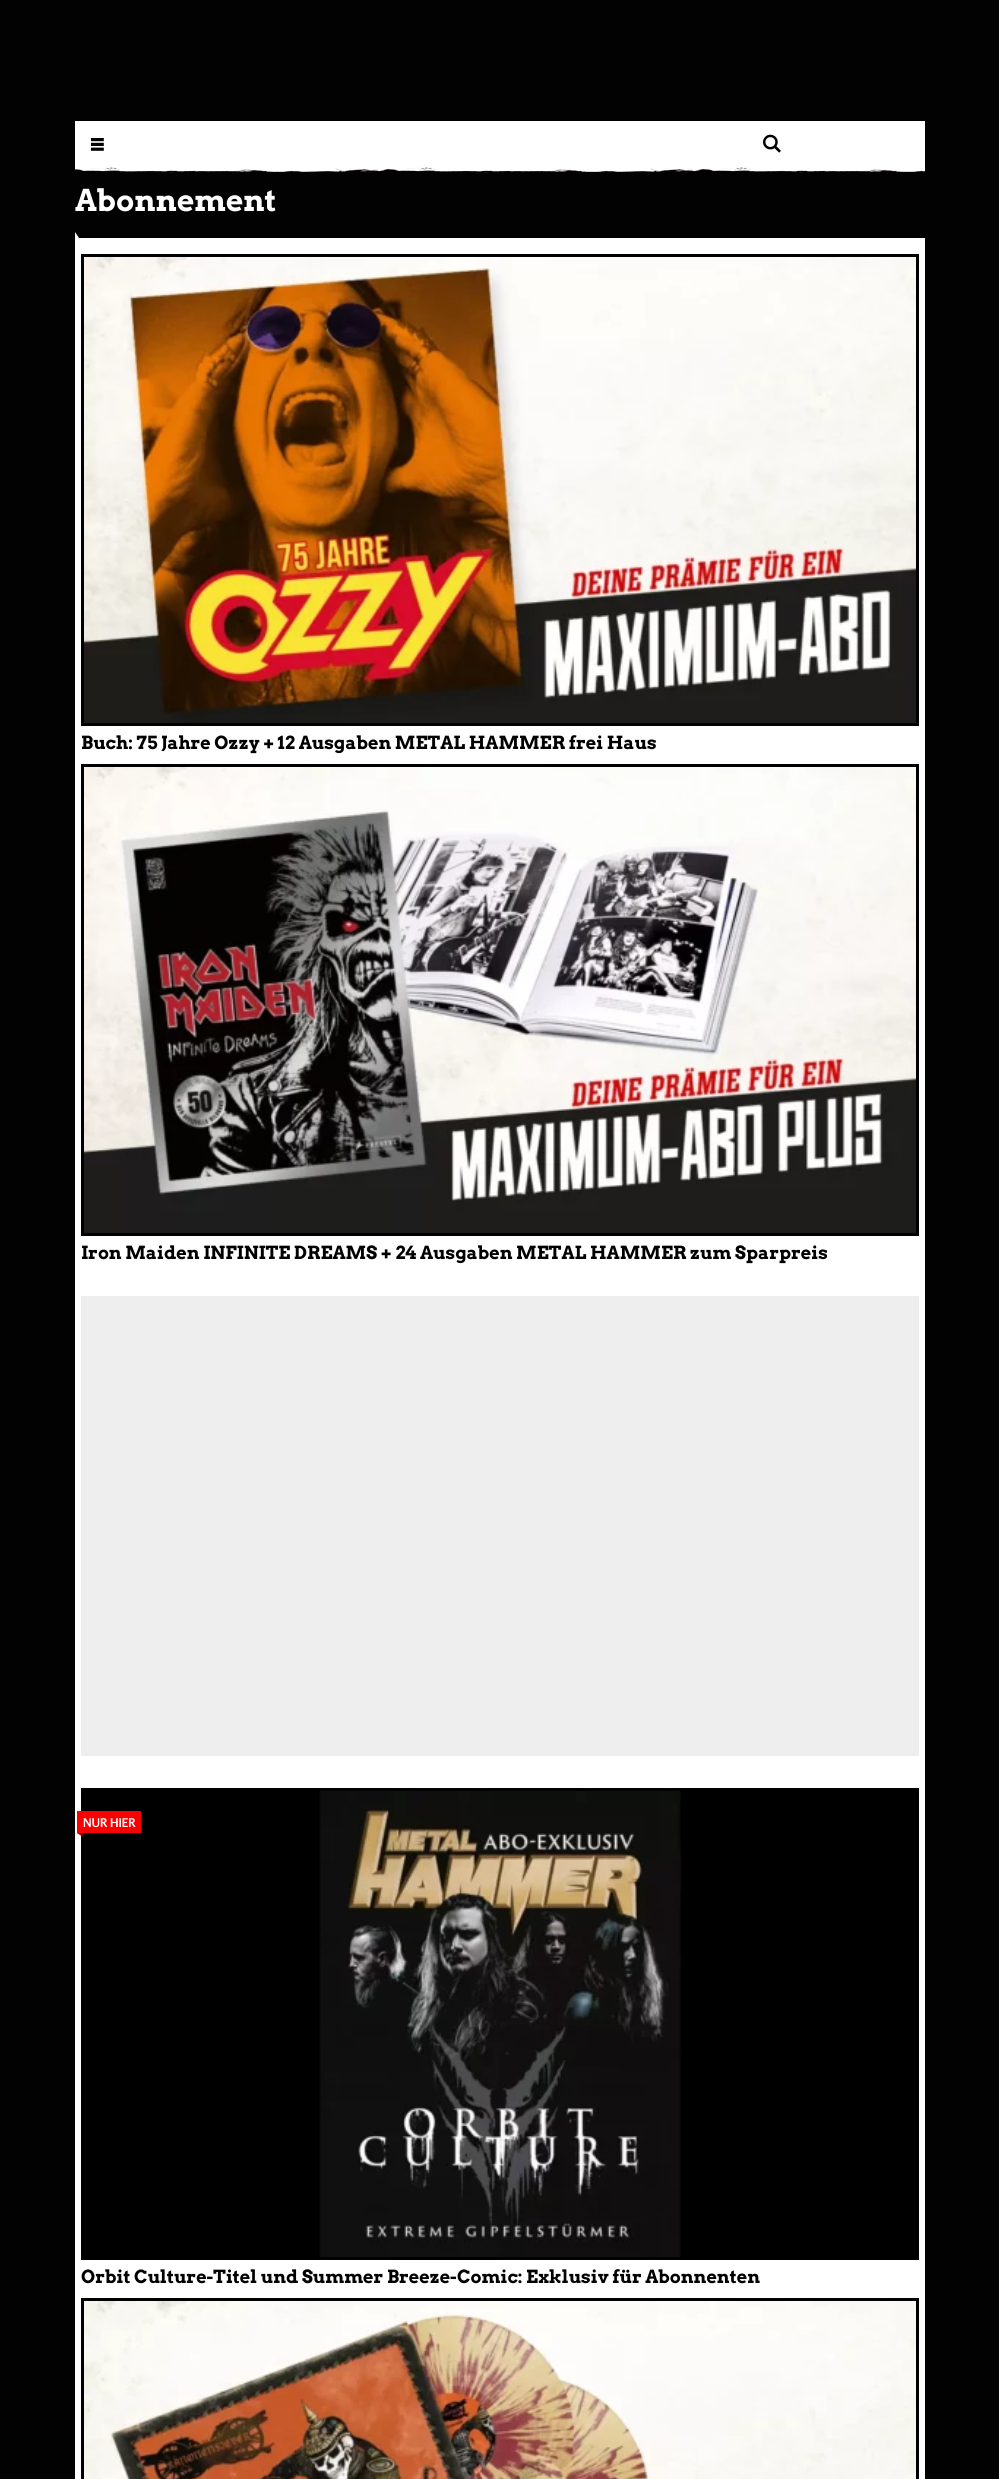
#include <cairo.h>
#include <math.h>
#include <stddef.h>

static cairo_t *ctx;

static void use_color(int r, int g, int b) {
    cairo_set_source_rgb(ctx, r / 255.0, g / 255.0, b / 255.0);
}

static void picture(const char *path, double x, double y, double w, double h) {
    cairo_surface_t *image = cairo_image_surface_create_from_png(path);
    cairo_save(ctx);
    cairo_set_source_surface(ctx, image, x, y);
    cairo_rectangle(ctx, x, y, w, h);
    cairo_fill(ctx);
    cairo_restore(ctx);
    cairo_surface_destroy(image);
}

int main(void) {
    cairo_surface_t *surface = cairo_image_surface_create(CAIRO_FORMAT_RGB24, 999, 2479);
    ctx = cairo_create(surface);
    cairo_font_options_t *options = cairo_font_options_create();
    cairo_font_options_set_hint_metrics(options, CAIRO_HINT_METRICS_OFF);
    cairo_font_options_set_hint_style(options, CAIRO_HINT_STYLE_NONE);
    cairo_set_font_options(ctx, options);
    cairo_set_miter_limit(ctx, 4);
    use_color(2, 2, 2);
    cairo_paint(ctx);
    use_color(255, 255, 255);
    cairo_rectangle(ctx, 75, 121, 850, 52);
    cairo_fill(ctx);
    picture("img1.png", 91, 138, 13, 13);
    picture("img2.png", 763, 134, 18, 19);
    picture("img3.png", 75, 167, 850, 6);
    cairo_select_font_face(ctx, "Arvo", CAIRO_FONT_SLANT_NORMAL, CAIRO_FONT_WEIGHT_BOLD);
    cairo_set_font_size(ctx, 30);
    cairo_move_to(ctx, 75, 211);
    cairo_show_text(ctx, "Abonnement");
    cairo_rectangle(ctx, 75, 238, 850, 2241);
    cairo_fill(ctx);
    cairo_new_path(ctx);
    cairo_move_to(ctx, 75, 241);
    cairo_line_to(ctx, 75, 232);
    cairo_line_to(ctx, 81, 241);
    cairo_close_path(ctx);
    cairo_fill(ctx);
    use_color(0, 0, 0);
    cairo_rectangle(ctx, 81, 254, 838, 472);
    cairo_fill(ctx);
    picture("img4.png", 84, 257, 832, 466);
    cairo_set_font_size(ctx, 18);
    cairo_move_to(ctx, 81, 749);
    cairo_show_text(ctx, "Buch: 75 Jahre Ozzy + 12 Ausgaben METAL HAMMER frei Haus");
    cairo_rectangle(ctx, 81, 764, 838, 472);
    cairo_fill(ctx);
    picture("img5.png", 84, 767, 832, 466);
    cairo_move_to(ctx, 81, 1259);
    cairo_show_text(ctx, "Iron Maiden INFINITE DREAMS + 24 Ausgaben METAL HAMMER zum Sparpreis");
    use_color(238, 238, 238);
    cairo_rectangle(ctx, 81, 1296, 838, 460);
    cairo_fill(ctx);
    use_color(0, 0, 0);
    cairo_rectangle(ctx, 81, 1788, 838, 472);
    cairo_fill(ctx);
    use_color(250, 0, 0);
    cairo_rectangle(ctx, 77, 1811, 64, 22);
    cairo_fill(ctx);
    cairo_select_font_face(ctx, "Rosario", CAIRO_FONT_SLANT_NORMAL, CAIRO_FONT_WEIGHT_BOLD);
    cairo_set_font_size(ctx, 12);
    use_color(255, 255, 255);
    cairo_move_to(ctx, 83, 1827);
    cairo_show_text(ctx, "NUR HIER");
    use_color(125, 0, 0);
    cairo_new_path(ctx);
    cairo_move_to(ctx, 83, 1833);
    cairo_line_to(ctx, 83, 1837);
    cairo_line_to(ctx, 77, 1833);
    cairo_close_path(ctx);
    cairo_fill(ctx);
    picture("img6.png", 319, 1791, 363, 466);
    cairo_select_font_face(ctx, "Arvo", CAIRO_FONT_SLANT_NORMAL, CAIRO_FONT_WEIGHT_BOLD);
    cairo_set_font_size(ctx, 18);
    use_color(0, 0, 0);
    cairo_move_to(ctx, 81, 2283);
    cairo_show_text(ctx, "Orbit Culture-Titel und Summer Breeze-Comic: Exklusiv für Abonnenten");
    cairo_rectangle(ctx, 81, 2298, 838, 181);
    cairo_fill(ctx);
    picture("img7.png", 84, 2301, 832, 178);
    cairo_surface_write_to_png(surface, "result.png");
    cairo_font_options_destroy(options);
    cairo_destroy(ctx);
    cairo_surface_destroy(surface);
    return 0;
}
